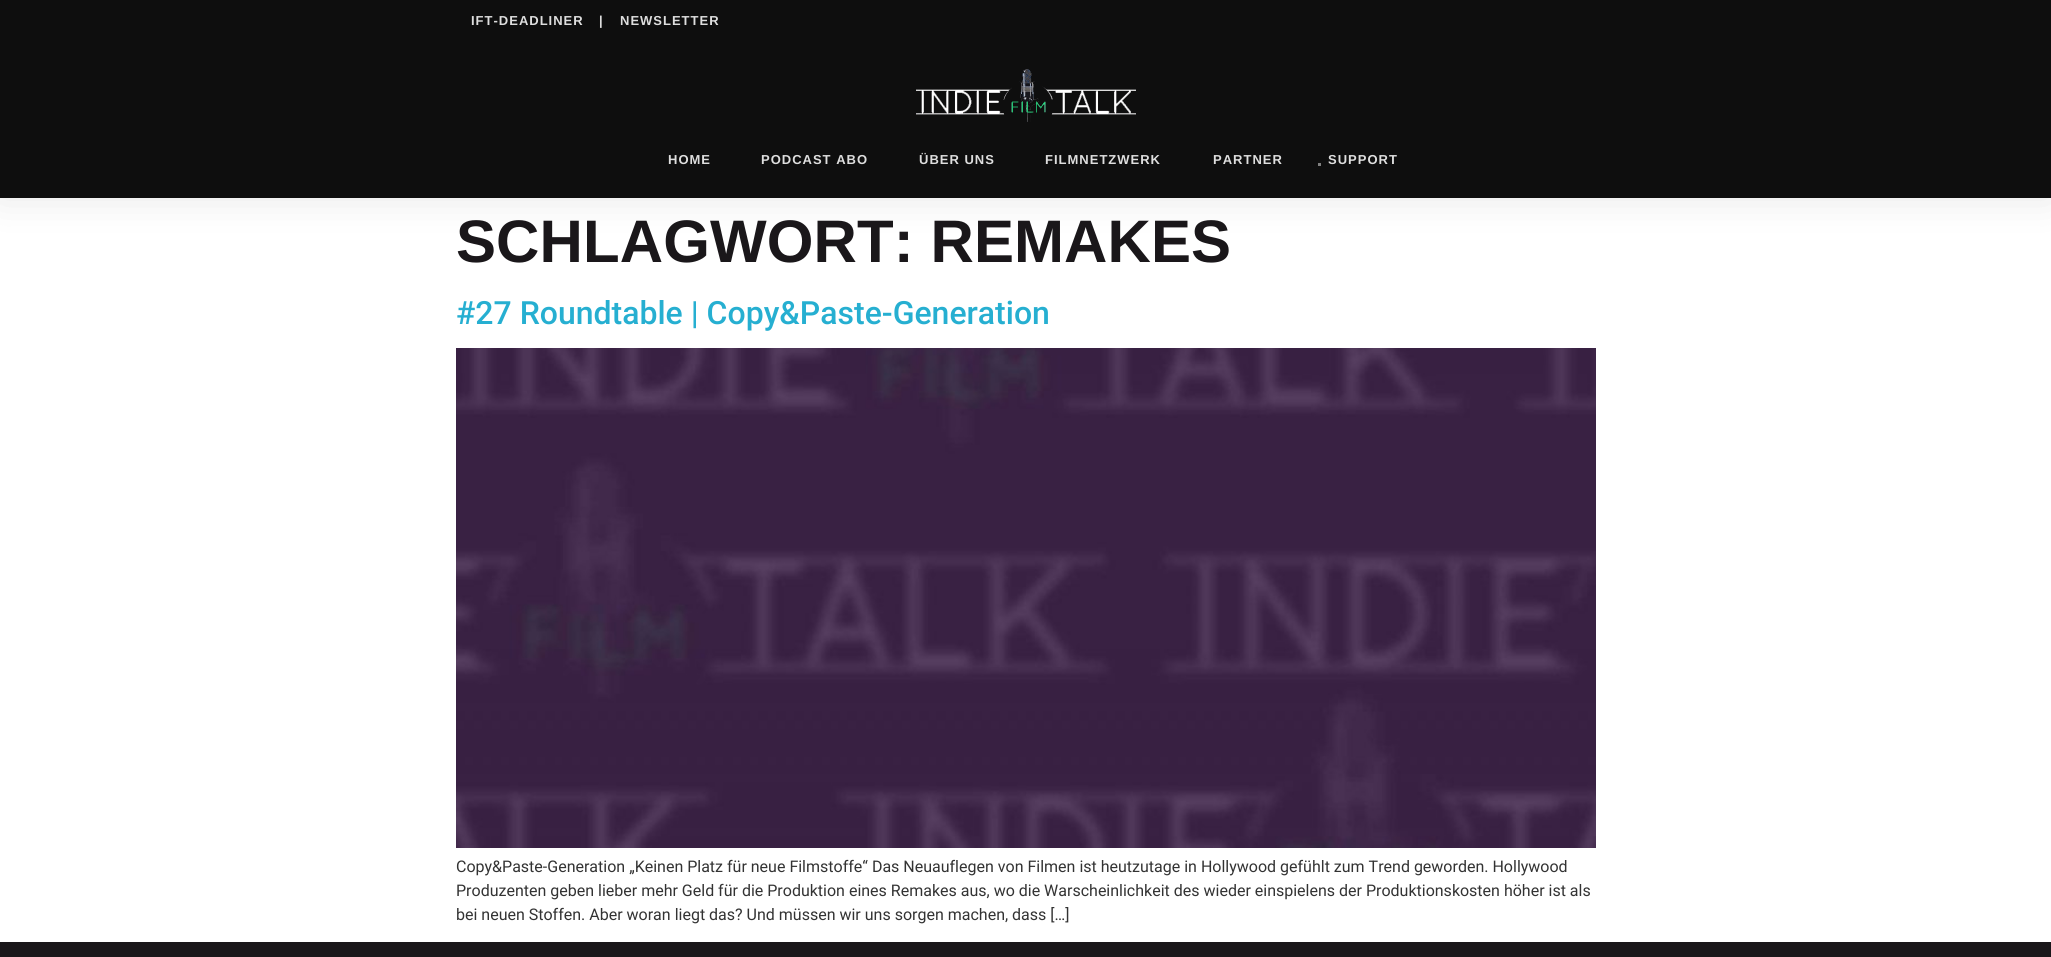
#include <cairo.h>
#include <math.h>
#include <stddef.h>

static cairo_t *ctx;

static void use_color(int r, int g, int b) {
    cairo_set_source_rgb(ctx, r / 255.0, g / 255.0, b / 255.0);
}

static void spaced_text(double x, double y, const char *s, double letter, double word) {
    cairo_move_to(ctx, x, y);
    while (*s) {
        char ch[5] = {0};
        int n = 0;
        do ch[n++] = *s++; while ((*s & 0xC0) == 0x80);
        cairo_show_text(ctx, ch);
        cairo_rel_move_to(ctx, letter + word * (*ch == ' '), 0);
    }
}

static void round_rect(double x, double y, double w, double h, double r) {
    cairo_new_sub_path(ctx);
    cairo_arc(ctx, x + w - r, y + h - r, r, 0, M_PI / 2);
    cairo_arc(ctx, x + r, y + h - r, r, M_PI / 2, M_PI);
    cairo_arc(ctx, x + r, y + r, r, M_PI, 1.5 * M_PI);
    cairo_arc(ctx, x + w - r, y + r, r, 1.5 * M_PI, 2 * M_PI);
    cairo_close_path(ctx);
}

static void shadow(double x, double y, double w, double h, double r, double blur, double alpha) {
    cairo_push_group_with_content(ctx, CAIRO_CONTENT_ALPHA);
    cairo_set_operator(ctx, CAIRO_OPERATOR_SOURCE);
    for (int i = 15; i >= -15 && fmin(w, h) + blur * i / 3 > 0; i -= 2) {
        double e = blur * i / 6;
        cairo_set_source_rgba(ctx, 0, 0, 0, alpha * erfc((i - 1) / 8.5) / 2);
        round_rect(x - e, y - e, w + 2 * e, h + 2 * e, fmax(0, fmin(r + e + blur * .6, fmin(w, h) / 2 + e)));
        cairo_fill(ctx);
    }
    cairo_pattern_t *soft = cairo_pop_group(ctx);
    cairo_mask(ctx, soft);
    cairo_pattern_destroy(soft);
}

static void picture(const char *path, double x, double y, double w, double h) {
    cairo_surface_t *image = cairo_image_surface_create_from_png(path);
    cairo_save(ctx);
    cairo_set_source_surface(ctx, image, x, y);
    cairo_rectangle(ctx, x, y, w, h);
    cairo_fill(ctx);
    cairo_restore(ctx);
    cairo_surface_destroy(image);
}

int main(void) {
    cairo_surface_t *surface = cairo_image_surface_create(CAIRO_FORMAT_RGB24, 2051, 957);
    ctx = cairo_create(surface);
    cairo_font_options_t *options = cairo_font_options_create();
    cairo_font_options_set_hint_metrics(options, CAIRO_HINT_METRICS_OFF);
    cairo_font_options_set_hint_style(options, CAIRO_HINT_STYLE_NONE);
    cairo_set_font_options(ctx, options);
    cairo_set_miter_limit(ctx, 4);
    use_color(255, 255, 255);
    cairo_paint(ctx);
    use_color(0, 0, 0);
    shadow(0, 0, 2051, 198, 0, 19, 0.1);
    use_color(14, 14, 14);
    cairo_rectangle(ctx, 0, 0, 2051, 198);
    cairo_fill(ctx);
    cairo_select_font_face(ctx, "Liberation Sans", CAIRO_FONT_SLANT_NORMAL, CAIRO_FONT_WEIGHT_BOLD);
    cairo_set_font_size(ctx, 13);
    use_color(222, 222, 222);
    spaced_text(471, 25, "IFT-DEADLINER", 1, 0);
    spaced_text(599, 25, "|", 1, 0);
    spaced_text(620, 25, "NEWSLETTER", 1, 0);
    picture("img1.png", 916, 69, 220, 53);
    spaced_text(668, 164, "HOME", 1, 0);
    spaced_text(761, 164, "PODCAST ABO", 1, 0);
    spaced_text(919, 164, "ÜBER UNS", 1, 0);
    spaced_text(1045, 164, "FILMNETZWERK", 1, 0);
    spaced_text(1213, 164, "PARTNER", 1, 0);
    use_color(128, 128, 128);
    cairo_rectangle(ctx, 1318, 163, 3, 3);
    cairo_fill(ctx);
    use_color(222, 222, 222);
    spaced_text(1328, 164, "SUPPORT", 1, 0);
    cairo_set_font_size(ctx, 60);
    use_color(26, 23, 26);
    spaced_text(456, 262, "SCHLAGWORT: REMAKES", 0.1, 0);
    cairo_select_font_face(ctx, "Roboto Medium", CAIRO_FONT_SLANT_NORMAL, CAIRO_FONT_WEIGHT_NORMAL);
    cairo_set_font_size(ctx, 32);
    use_color(38, 175, 209);
    cairo_move_to(ctx, 456, 324);
    cairo_show_text(ctx, "#27 Roundtable | Copy&Paste-Generation");
    picture("img2.png", 456, 348, 1140, 500);
    cairo_select_font_face(ctx, "Roboto", CAIRO_FONT_SLANT_NORMAL, CAIRO_FONT_WEIGHT_NORMAL);
    cairo_set_font_size(ctx, 16);
    use_color(51, 51, 51);
    cairo_move_to(ctx, 456, 872);
    cairo_show_text(ctx, "Copy&Paste-Generation „Keinen Platz für neue Filmstoffe“ Das Neuauflegen von Filmen ist heutzutage in Hollywood gefühlt zum Trend geworden. Hollywood");
    cairo_move_to(ctx, 456, 896);
    cairo_show_text(ctx, "Produzenten geben lieber mehr Geld für die Produktion eines Remakes aus, wo die Warscheinlichkeit des wieder einspielens der Produktionskosten höher ist als");
    cairo_move_to(ctx, 456, 920);
    cairo_show_text(ctx, "bei neuen Stoffen. Aber woran liegt das? Und müssen wir uns sorgen machen, dass […]");
    use_color(26, 23, 26);
    cairo_rectangle(ctx, 0, 942, 2051, 15);
    cairo_fill(ctx);
    cairo_surface_write_to_png(surface, "result.png");
    cairo_font_options_destroy(options);
    cairo_destroy(ctx);
    cairo_surface_destroy(surface);
    return 0;
}
